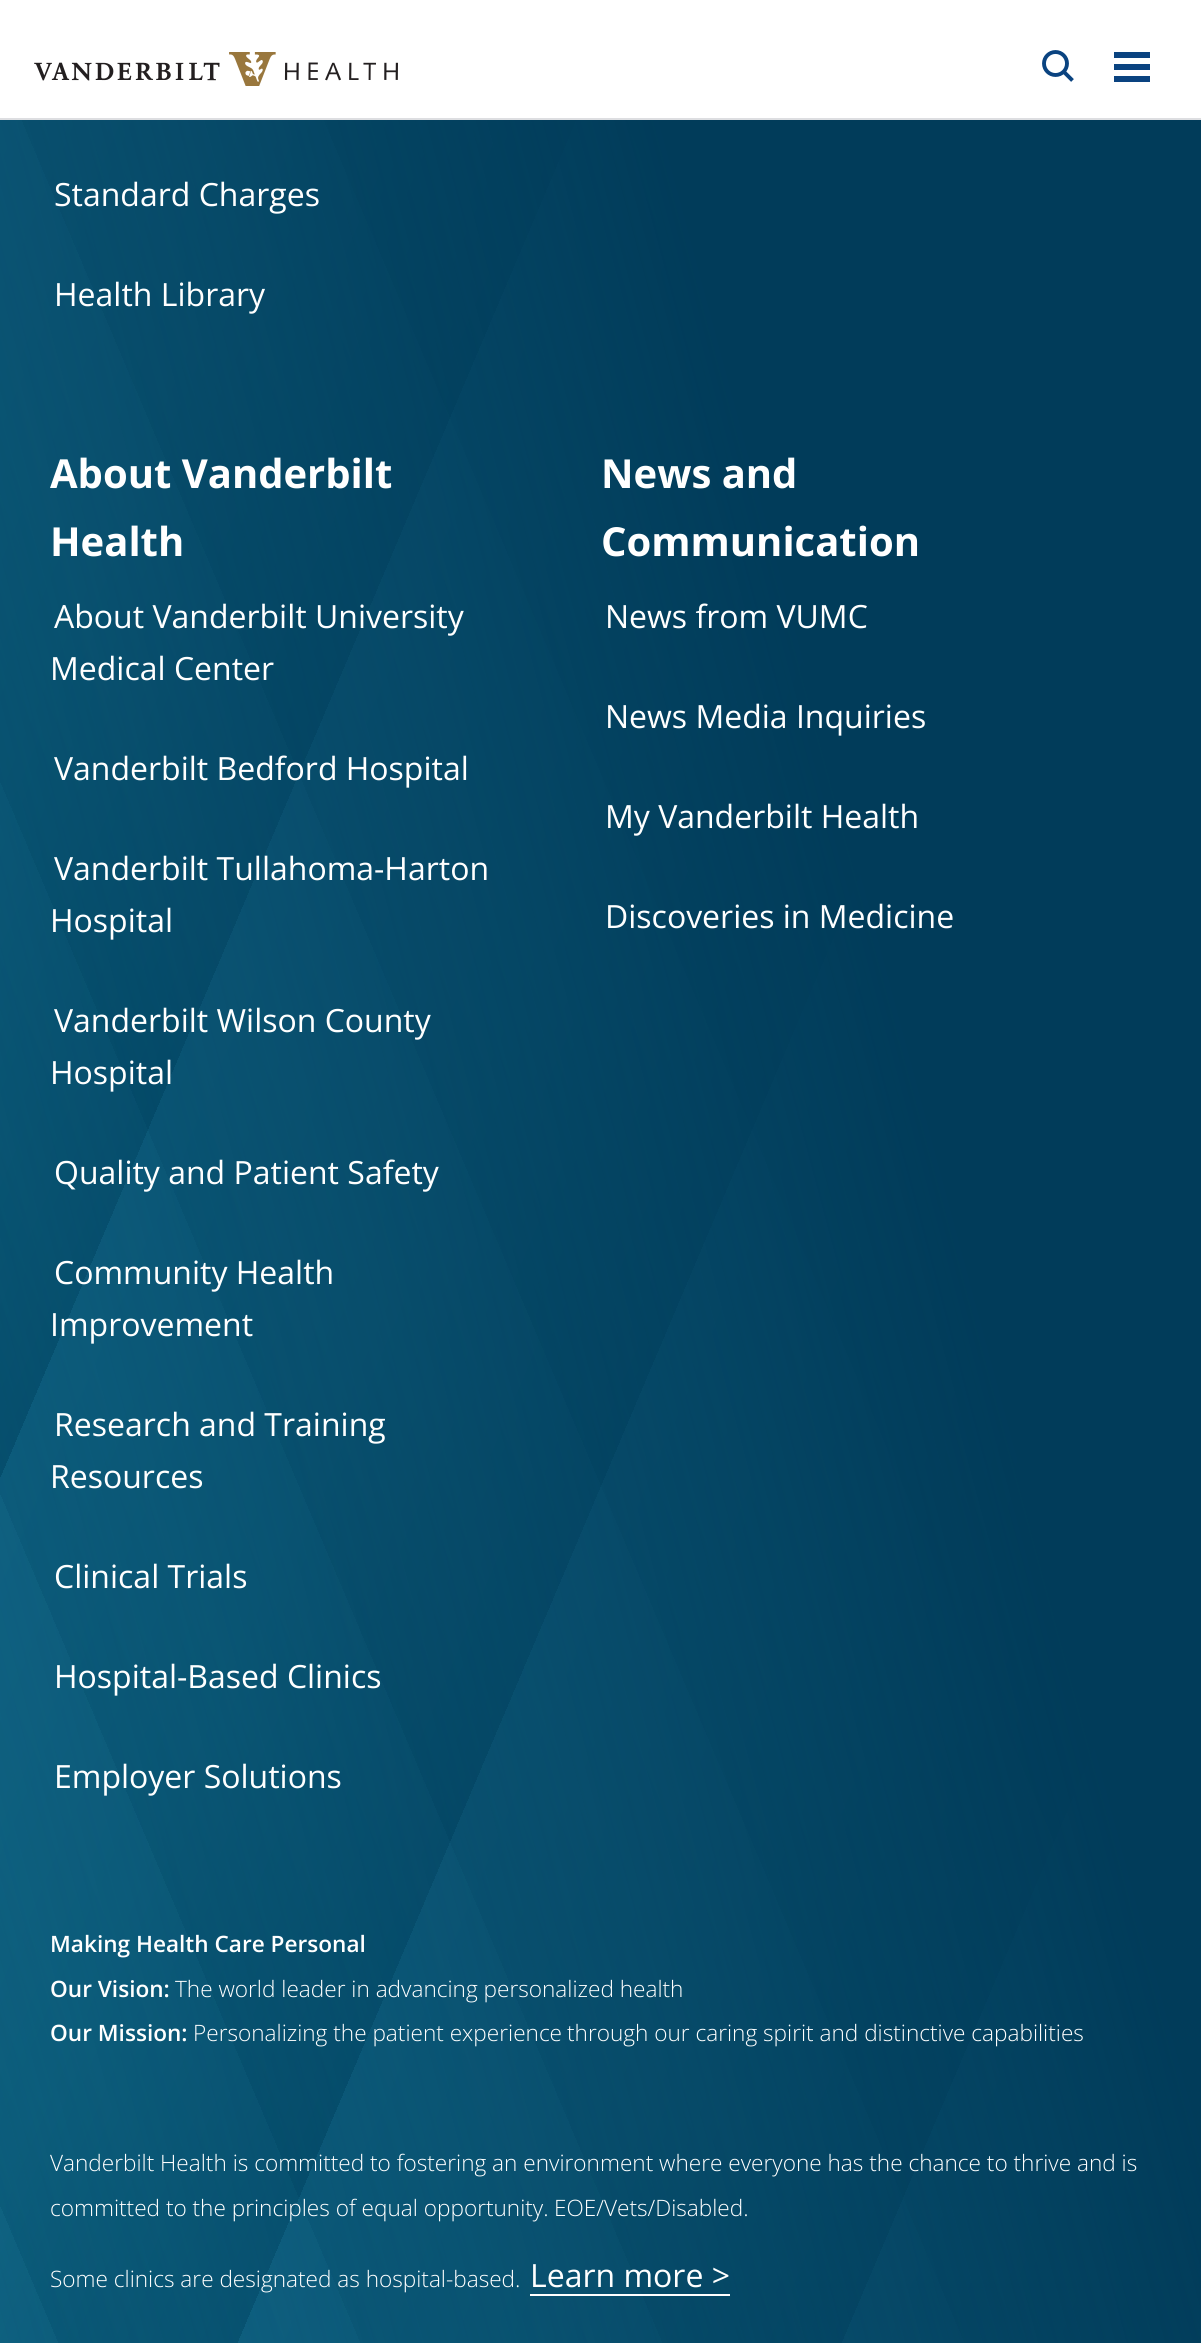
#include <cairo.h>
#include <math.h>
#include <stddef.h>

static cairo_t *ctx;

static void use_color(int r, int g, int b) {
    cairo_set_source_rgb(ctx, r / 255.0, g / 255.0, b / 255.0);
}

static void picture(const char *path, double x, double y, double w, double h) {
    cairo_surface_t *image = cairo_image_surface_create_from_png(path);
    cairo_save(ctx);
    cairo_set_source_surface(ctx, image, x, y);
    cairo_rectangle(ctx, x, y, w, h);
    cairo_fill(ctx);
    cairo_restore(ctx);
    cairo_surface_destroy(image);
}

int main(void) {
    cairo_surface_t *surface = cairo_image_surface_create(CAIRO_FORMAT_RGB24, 1201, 2343);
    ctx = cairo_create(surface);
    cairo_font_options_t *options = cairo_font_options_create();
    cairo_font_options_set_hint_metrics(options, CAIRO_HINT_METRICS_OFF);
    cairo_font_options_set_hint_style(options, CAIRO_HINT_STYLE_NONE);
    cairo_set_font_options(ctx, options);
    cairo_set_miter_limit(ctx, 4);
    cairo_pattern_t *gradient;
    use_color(255, 255, 255);
    cairo_paint(ctx);
    use_color(221, 222, 225);
    cairo_rectangle(ctx, 0, 118, 1201, 2);
    cairo_fill(ctx);
    picture("img1.png", 34, 52, 364, 34);
    cairo_new_path(ctx);
    cairo_move_to(ctx, 1063.5, 71.5);
    cairo_line_to(ctx, 1072.5, 80.5);
    use_color(10, 67, 128);
    cairo_set_line_width(ctx, 3.9);
    cairo_stroke(ctx);
    cairo_arc(ctx, 1055.5, 63.5, 11.5, 0, 2 * M_PI);
    cairo_stroke(ctx);
    cairo_rectangle(ctx, 1114, 52, 36, 6);
    cairo_fill(ctx);
    cairo_rectangle(ctx, 1114, 64, 36, 6);
    cairo_fill(ctx);
    cairo_rectangle(ctx, 1114, 76, 36, 6);
    cairo_fill(ctx);
    gradient = cairo_pattern_create_linear(-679, 1317, 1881, 231);
    cairo_pattern_add_color_stop_rgba(gradient, 0, 0.043, 0.361, 0.478, 1);
    cairo_pattern_add_color_stop_rgba(gradient, 0.05, 0.067, 0.408, 0.525, 1);
    cairo_pattern_add_color_stop_rgba(gradient, 0.1, 0.078, 0.427, 0.553, 1);
    cairo_pattern_add_color_stop_rgba(gradient, 0.1, 0.043, 0.361, 0.478, 1);
    cairo_pattern_add_color_stop_rgba(gradient, 0.15, 0.067, 0.408, 0.525, 1);
    cairo_pattern_add_color_stop_rgba(gradient, 0.2, 0.078, 0.427, 0.553, 1);
    cairo_pattern_add_color_stop_rgba(gradient, 0.2, 0.043, 0.361, 0.478, 1);
    cairo_pattern_add_color_stop_rgba(gradient, 0.25, 0.067, 0.408, 0.525, 1);
    cairo_pattern_add_color_stop_rgba(gradient, 0.3, 0.078, 0.427, 0.553, 1);
    cairo_pattern_add_color_stop_rgba(gradient, 0.3, 0.043, 0.361, 0.478, 1);
    cairo_pattern_add_color_stop_rgba(gradient, 0.35, 0.067, 0.408, 0.525, 1);
    cairo_pattern_add_color_stop_rgba(gradient, 0.4, 0.078, 0.427, 0.553, 1);
    cairo_pattern_add_color_stop_rgba(gradient, 0.4, 0.043, 0.361, 0.478, 1);
    cairo_pattern_add_color_stop_rgba(gradient, 0.45, 0.067, 0.408, 0.525, 1);
    cairo_pattern_add_color_stop_rgba(gradient, 0.5, 0.078, 0.427, 0.553, 1);
    cairo_pattern_add_color_stop_rgba(gradient, 0.5, 0.043, 0.361, 0.478, 1);
    cairo_pattern_add_color_stop_rgba(gradient, 0.55, 0.067, 0.408, 0.525, 1);
    cairo_pattern_add_color_stop_rgba(gradient, 0.6, 0.078, 0.427, 0.553, 1);
    cairo_pattern_add_color_stop_rgba(gradient, 0.6, 0.043, 0.361, 0.478, 1);
    cairo_pattern_add_color_stop_rgba(gradient, 0.65, 0.067, 0.408, 0.525, 1);
    cairo_pattern_add_color_stop_rgba(gradient, 0.7, 0.078, 0.427, 0.553, 1);
    cairo_pattern_add_color_stop_rgba(gradient, 0.7, 0.043, 0.361, 0.478, 1);
    cairo_pattern_add_color_stop_rgba(gradient, 0.75, 0.067, 0.408, 0.525, 1);
    cairo_pattern_add_color_stop_rgba(gradient, 0.8, 0.078, 0.427, 0.553, 1);
    cairo_pattern_add_color_stop_rgba(gradient, 0.8, 0.043, 0.361, 0.478, 1);
    cairo_pattern_add_color_stop_rgba(gradient, 0.85, 0.067, 0.408, 0.525, 1);
    cairo_pattern_add_color_stop_rgba(gradient, 0.9, 0.078, 0.427, 0.553, 1);
    cairo_pattern_add_color_stop_rgba(gradient, 0.9, 0.043, 0.361, 0.478, 1);
    cairo_pattern_add_color_stop_rgba(gradient, 0.95, 0.067, 0.408, 0.525, 1);
    cairo_pattern_add_color_stop_rgba(gradient, 1, 0.078, 0.427, 0.553, 1);
    cairo_set_source(ctx, gradient);
    cairo_pattern_destroy(gradient);
    cairo_rectangle(ctx, 0, 120, 1201, 2223);
    cairo_fill(ctx);
    gradient = cairo_pattern_create_linear(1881, 1317, -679, 231);
    cairo_pattern_add_color_stop_rgba(gradient, 0, 0.02, 0.314, 0.435, 0.6);
    cairo_pattern_add_color_stop_rgba(gradient, 0.1, 0.059, 0.392, 0.514, 0.6);
    cairo_pattern_add_color_stop_rgba(gradient, 0.2, 0.078, 0.427, 0.561, 0.6);
    cairo_pattern_add_color_stop_rgba(gradient, 0.2, 0.02, 0.314, 0.435, 0.6);
    cairo_pattern_add_color_stop_rgba(gradient, 0.3, 0.059, 0.392, 0.514, 0.6);
    cairo_pattern_add_color_stop_rgba(gradient, 0.4, 0.078, 0.427, 0.561, 0.6);
    cairo_pattern_add_color_stop_rgba(gradient, 0.4, 0.02, 0.314, 0.435, 0.6);
    cairo_pattern_add_color_stop_rgba(gradient, 0.5, 0.059, 0.392, 0.514, 0.6);
    cairo_pattern_add_color_stop_rgba(gradient, 0.6, 0.078, 0.427, 0.561, 0.6);
    cairo_pattern_add_color_stop_rgba(gradient, 0.6, 0.02, 0.314, 0.435, 0.6);
    cairo_pattern_add_color_stop_rgba(gradient, 0.7, 0.059, 0.392, 0.514, 0.6);
    cairo_pattern_add_color_stop_rgba(gradient, 0.8, 0.078, 0.427, 0.561, 0.6);
    cairo_pattern_add_color_stop_rgba(gradient, 0.8, 0.02, 0.314, 0.435, 0.6);
    cairo_pattern_add_color_stop_rgba(gradient, 0.9, 0.059, 0.392, 0.514, 0.6);
    cairo_pattern_add_color_stop_rgba(gradient, 1, 0.078, 0.427, 0.561, 0.6);
    cairo_set_source(ctx, gradient);
    cairo_pattern_destroy(gradient);
    cairo_rectangle(ctx, 0, 120, 1201, 2223);
    cairo_fill(ctx);
    gradient = cairo_pattern_create_linear(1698, 480, -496, 1068);
    cairo_pattern_add_color_stop_rgba(gradient, 0.4, 0.004, 0.235, 0.353, 1);
    cairo_pattern_add_color_stop_rgba(gradient, 1, 0.004, 0.235, 0.353, 0);
    cairo_set_source(ctx, gradient);
    cairo_pattern_destroy(gradient);
    cairo_rectangle(ctx, 0, 120, 1201, 2223);
    cairo_fill(ctx);
    cairo_select_font_face(ctx, "Open Sans", CAIRO_FONT_SLANT_NORMAL, CAIRO_FONT_WEIGHT_NORMAL);
    cairo_set_font_size(ctx, 32);
    use_color(255, 255, 255);
    cairo_move_to(ctx, 54, 206);
    cairo_show_text(ctx, "Standard Charges");
    cairo_move_to(ctx, 54, 306);
    cairo_show_text(ctx, "Health Library");
    cairo_select_font_face(ctx, "Open Sans", CAIRO_FONT_SLANT_NORMAL, CAIRO_FONT_WEIGHT_BOLD);
    cairo_set_font_size(ctx, 40);
    cairo_move_to(ctx, 50, 488);
    cairo_show_text(ctx, "About Vanderbilt");
    cairo_move_to(ctx, 50, 556);
    cairo_show_text(ctx, "Health");
    cairo_select_font_face(ctx, "Open Sans", CAIRO_FONT_SLANT_NORMAL, CAIRO_FONT_WEIGHT_NORMAL);
    cairo_set_font_size(ctx, 32);
    cairo_move_to(ctx, 54, 628);
    cairo_show_text(ctx, "About Vanderbilt University");
    cairo_move_to(ctx, 50, 680);
    cairo_show_text(ctx, "Medical Center");
    cairo_move_to(ctx, 54, 780);
    cairo_show_text(ctx, "Vanderbilt Bedford Hospital");
    cairo_move_to(ctx, 54, 880);
    cairo_show_text(ctx, "Vanderbilt Tullahoma-Harton");
    cairo_move_to(ctx, 50, 932);
    cairo_show_text(ctx, "Hospital");
    cairo_move_to(ctx, 54, 1032);
    cairo_show_text(ctx, "Vanderbilt Wilson County");
    cairo_move_to(ctx, 50, 1084);
    cairo_show_text(ctx, "Hospital");
    cairo_move_to(ctx, 54, 1184);
    cairo_show_text(ctx, "Quality and Patient Safety");
    cairo_move_to(ctx, 54, 1284);
    cairo_show_text(ctx, "Community Health");
    cairo_move_to(ctx, 50, 1336);
    cairo_show_text(ctx, "Improvement");
    cairo_move_to(ctx, 54, 1436);
    cairo_show_text(ctx, "Research and Training");
    cairo_move_to(ctx, 50, 1488);
    cairo_show_text(ctx, "Resources");
    cairo_move_to(ctx, 54, 1588);
    cairo_show_text(ctx, "Clinical Trials");
    cairo_move_to(ctx, 54, 1688);
    cairo_show_text(ctx, "Hospital-Based Clinics");
    cairo_move_to(ctx, 54, 1788);
    cairo_show_text(ctx, "Employer Solutions");
    cairo_select_font_face(ctx, "Open Sans", CAIRO_FONT_SLANT_NORMAL, CAIRO_FONT_WEIGHT_BOLD);
    cairo_set_font_size(ctx, 40);
    cairo_move_to(ctx, 601, 488);
    cairo_show_text(ctx, "News and");
    cairo_move_to(ctx, 601, 556);
    cairo_show_text(ctx, "Communication");
    cairo_select_font_face(ctx, "Open Sans", CAIRO_FONT_SLANT_NORMAL, CAIRO_FONT_WEIGHT_NORMAL);
    cairo_set_font_size(ctx, 32);
    cairo_move_to(ctx, 605, 628);
    cairo_show_text(ctx, "News from VUMC");
    cairo_move_to(ctx, 605, 728);
    cairo_show_text(ctx, "News Media Inquiries");
    cairo_move_to(ctx, 605, 828);
    cairo_show_text(ctx, "My Vanderbilt Health");
    cairo_move_to(ctx, 605, 928);
    cairo_show_text(ctx, "Discoveries in Medicine");
    cairo_select_font_face(ctx, "Open Sans SemiBold", CAIRO_FONT_SLANT_NORMAL, CAIRO_FONT_WEIGHT_NORMAL);
    cairo_set_font_size(ctx, 22.6);
    cairo_move_to(ctx, 50, 1952);
    cairo_show_text(ctx, "Making Health Care Personal");
    cairo_move_to(ctx, 50, 1997);
    cairo_show_text(ctx, "Our Vision:");
    cairo_select_font_face(ctx, "Open Sans Light", CAIRO_FONT_SLANT_NORMAL, CAIRO_FONT_WEIGHT_NORMAL);
    cairo_move_to(ctx, 175, 1997);
    cairo_show_text(ctx, "The world leader in advancing personalized health");
    cairo_select_font_face(ctx, "Open Sans SemiBold", CAIRO_FONT_SLANT_NORMAL, CAIRO_FONT_WEIGHT_NORMAL);
    cairo_move_to(ctx, 50, 2041);
    cairo_show_text(ctx, "Our Mission:");
    cairo_select_font_face(ctx, "Open Sans Light", CAIRO_FONT_SLANT_NORMAL, CAIRO_FONT_WEIGHT_NORMAL);
    cairo_move_to(ctx, 193, 2041);
    cairo_show_text(ctx, "Personalizing the patient experience");
    cairo_move_to(ctx, 567, 2041);
    cairo_show_text(ctx, "through our caring spirit and distinctive capabilities");
    cairo_move_to(ctx, 50, 2171);
    cairo_show_text(ctx, "Vanderbilt Health is committed to fostering an environment where everyone has the chance to thrive and is");
    cairo_move_to(ctx, 50, 2216);
    cairo_show_text(ctx, "committed to the principles of equal opportunity.");
    cairo_move_to(ctx, 554, 2216);
    cairo_show_text(ctx, "EOE/Vets/Disabled.");
    cairo_move_to(ctx, 50, 2287);
    cairo_show_text(ctx, "Some clinics are designated as hospital-based.");
    cairo_select_font_face(ctx, "Open Sans", CAIRO_FONT_SLANT_NORMAL, CAIRO_FONT_WEIGHT_NORMAL);
    cairo_set_font_size(ctx, 32);
    cairo_move_to(ctx, 530, 2287);
    cairo_show_text(ctx, "Learn more >");
    cairo_rectangle(ctx, 530, 2294, 200, 2);
    cairo_fill(ctx);
    cairo_surface_write_to_png(surface, "result.png");
    cairo_font_options_destroy(options);
    cairo_destroy(ctx);
    cairo_surface_destroy(surface);
    return 0;
}
